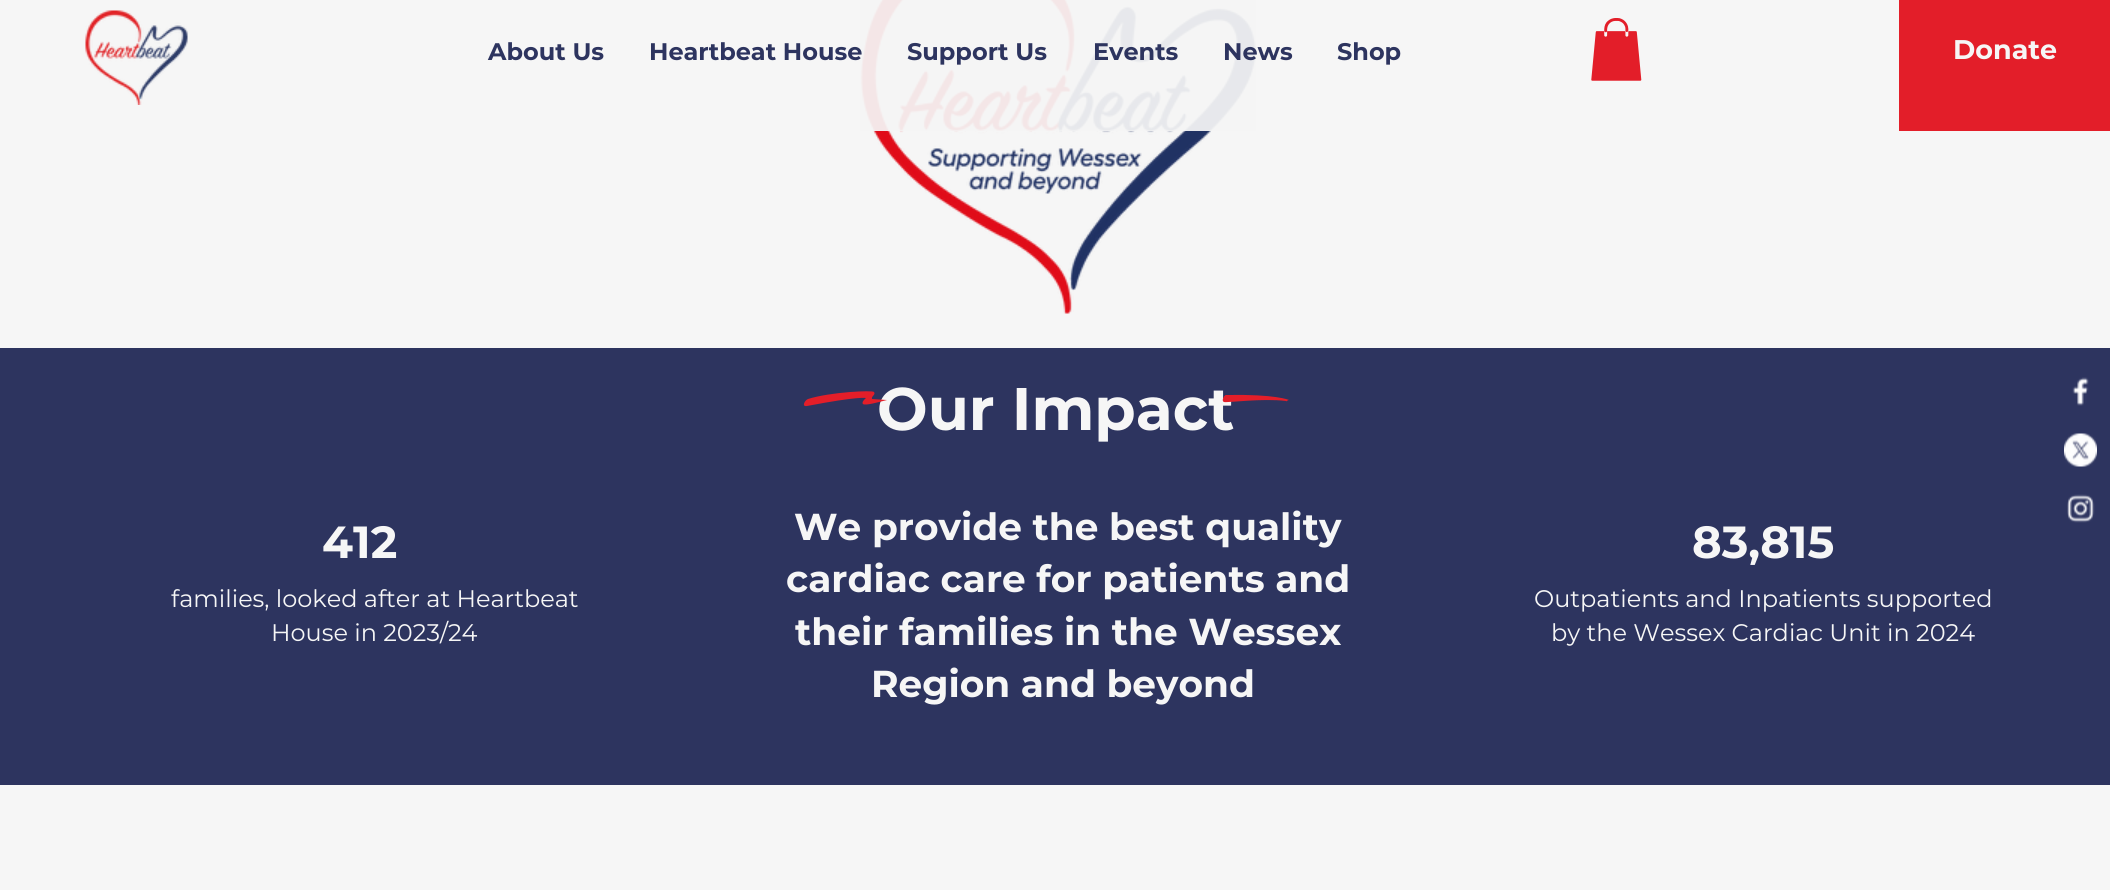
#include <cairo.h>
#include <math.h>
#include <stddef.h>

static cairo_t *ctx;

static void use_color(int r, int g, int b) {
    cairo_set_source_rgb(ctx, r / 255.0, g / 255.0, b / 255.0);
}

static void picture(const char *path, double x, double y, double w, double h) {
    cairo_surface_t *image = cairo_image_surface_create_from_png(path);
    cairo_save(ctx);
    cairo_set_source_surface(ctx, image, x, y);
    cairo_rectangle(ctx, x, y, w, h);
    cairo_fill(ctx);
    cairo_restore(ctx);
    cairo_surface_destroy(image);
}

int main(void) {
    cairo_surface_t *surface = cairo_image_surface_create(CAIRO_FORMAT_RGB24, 2110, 890);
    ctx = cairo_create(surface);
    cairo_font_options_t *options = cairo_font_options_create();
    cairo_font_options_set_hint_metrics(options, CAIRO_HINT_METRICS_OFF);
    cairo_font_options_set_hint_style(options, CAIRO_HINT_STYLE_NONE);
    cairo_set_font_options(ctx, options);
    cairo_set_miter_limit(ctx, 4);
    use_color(246, 246, 246);
    cairo_paint(ctx);
    picture("img3.png", 860, 0, 396, 314);
    cairo_set_source_rgba(ctx, 0.965, 0.965, 0.965, 0.93);
    cairo_rectangle(ctx, 860, 0, 396, 131);
    cairo_fill(ctx);
    picture("img1.png", 85, 10, 103, 95);
    cairo_select_font_face(ctx, "Montserrat", CAIRO_FONT_SLANT_NORMAL, CAIRO_FONT_WEIGHT_BOLD);
    cairo_set_font_size(ctx, 24);
    use_color(45, 52, 95);
    cairo_move_to(ctx, 488, 60);
    cairo_show_text(ctx, "About Us");
    cairo_move_to(ctx, 649, 60);
    cairo_show_text(ctx, "Heartbeat House");
    cairo_move_to(ctx, 907, 60);
    cairo_show_text(ctx, "Support Us");
    cairo_move_to(ctx, 1093, 60);
    cairo_show_text(ctx, "Events");
    cairo_move_to(ctx, 1223, 60);
    cairo_show_text(ctx, "News");
    cairo_move_to(ctx, 1337, 60);
    cairo_show_text(ctx, "Shop");
    picture("img2.png", 1591, 18, 51, 63);
    use_color(227, 30, 41);
    cairo_rectangle(ctx, 1899, 0, 211, 131);
    cairo_fill(ctx);
    cairo_set_font_size(ctx, 27);
    use_color(246, 246, 246);
    cairo_move_to(ctx, 1953, 59);
    cairo_show_text(ctx, "Donate");
    use_color(45, 52, 95);
    cairo_rectangle(ctx, 0, 348, 2110, 437);
    cairo_fill(ctx);
    cairo_set_font_size(ctx, 60);
    use_color(246, 246, 246);
    cairo_move_to(ctx, 877, 430);
    cairo_show_text(ctx, "Our Impact");
    use_color(227, 30, 41);
    cairo_set_fill_rule(ctx, CAIRO_FILL_RULE_EVEN_ODD);
    cairo_new_path(ctx);
    cairo_move_to(ctx, 872, 399);
    cairo_line_to(ctx, 887, 400);
    cairo_curve_to(ctx, 879, 402, 865, 406, 863, 404);
    cairo_curve_to(ctx, 861, 402, 866, 398, 866, 398);
    cairo_curve_to(ctx, 866, 398, 859, 396, 807, 406);
    cairo_curve_to(ctx, 801, 407, 805, 400, 808, 399);
    cairo_curve_to(ctx, 830, 392, 873, 390, 874, 392);
    cairo_curve_to(ctx, 876, 395, 871, 396, 872, 399);
    cairo_close_path(ctx);
    cairo_fill(ctx);
    cairo_new_path(ctx);
    cairo_move_to(ctx, 1289, 400);
    cairo_curve_to(ctx, 1287, 400, 1287, 402, 1286, 401);
    cairo_curve_to(ctx, 1263, 398, 1226, 403, 1224, 402);
    cairo_curve_to(ctx, 1221, 401, 1224, 395, 1226, 395);
    cairo_curve_to(ctx, 1276, 394, 1289, 400, 1289, 400);
    cairo_close_path(ctx);
    cairo_fill(ctx);
    cairo_set_font_size(ctx, 45);
    use_color(246, 246, 246);
    cairo_move_to(ctx, 322, 558);
    cairo_show_text(ctx, "412");
    cairo_select_font_face(ctx, "Montserrat", CAIRO_FONT_SLANT_NORMAL, CAIRO_FONT_WEIGHT_NORMAL);
    cairo_set_font_size(ctx, 24);
    cairo_move_to(ctx, 171, 607);
    cairo_show_text(ctx, "families, looked after at Heartbeat");
    cairo_move_to(ctx, 271, 641);
    cairo_show_text(ctx, "House in 2023/24");
    cairo_select_font_face(ctx, "Montserrat", CAIRO_FONT_SLANT_NORMAL, CAIRO_FONT_WEIGHT_BOLD);
    cairo_set_font_size(ctx, 37.5);
    cairo_move_to(ctx, 794, 540);
    cairo_show_text(ctx, "We provide the best quality");
    cairo_move_to(ctx, 786, 592);
    cairo_show_text(ctx, "cardiac care for patients and");
    cairo_move_to(ctx, 795, 645);
    cairo_show_text(ctx, "their families in the Wessex");
    cairo_move_to(ctx, 871, 697);
    cairo_show_text(ctx, "Region and beyond");
    cairo_set_font_size(ctx, 45);
    cairo_move_to(ctx, 1692, 558);
    cairo_show_text(ctx, "83,815");
    cairo_select_font_face(ctx, "Montserrat", CAIRO_FONT_SLANT_NORMAL, CAIRO_FONT_WEIGHT_NORMAL);
    cairo_set_font_size(ctx, 24);
    cairo_move_to(ctx, 1534, 607);
    cairo_show_text(ctx, "Outpatients and Inpatients supported");
    cairo_move_to(ctx, 1551, 641);
    cairo_show_text(ctx, "by the Wessex Cardiac Unit in 2024");
    picture("img4.png", 2072, 377, 17, 29);
    picture("img5.png", 2064, 433, 33, 34);
    picture("img6.png", 2067, 494, 28, 29);
    cairo_surface_write_to_png(surface, "result.png");
    cairo_font_options_destroy(options);
    cairo_destroy(ctx);
    cairo_surface_destroy(surface);
    return 0;
}
